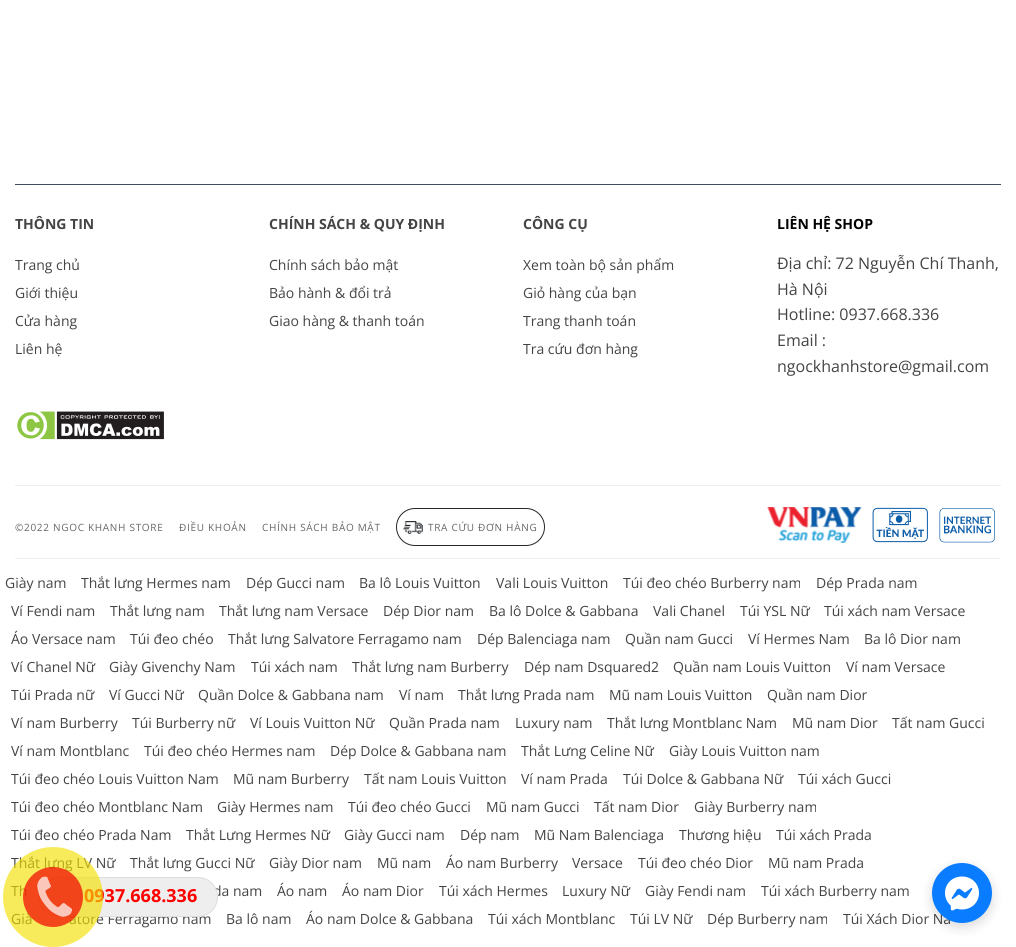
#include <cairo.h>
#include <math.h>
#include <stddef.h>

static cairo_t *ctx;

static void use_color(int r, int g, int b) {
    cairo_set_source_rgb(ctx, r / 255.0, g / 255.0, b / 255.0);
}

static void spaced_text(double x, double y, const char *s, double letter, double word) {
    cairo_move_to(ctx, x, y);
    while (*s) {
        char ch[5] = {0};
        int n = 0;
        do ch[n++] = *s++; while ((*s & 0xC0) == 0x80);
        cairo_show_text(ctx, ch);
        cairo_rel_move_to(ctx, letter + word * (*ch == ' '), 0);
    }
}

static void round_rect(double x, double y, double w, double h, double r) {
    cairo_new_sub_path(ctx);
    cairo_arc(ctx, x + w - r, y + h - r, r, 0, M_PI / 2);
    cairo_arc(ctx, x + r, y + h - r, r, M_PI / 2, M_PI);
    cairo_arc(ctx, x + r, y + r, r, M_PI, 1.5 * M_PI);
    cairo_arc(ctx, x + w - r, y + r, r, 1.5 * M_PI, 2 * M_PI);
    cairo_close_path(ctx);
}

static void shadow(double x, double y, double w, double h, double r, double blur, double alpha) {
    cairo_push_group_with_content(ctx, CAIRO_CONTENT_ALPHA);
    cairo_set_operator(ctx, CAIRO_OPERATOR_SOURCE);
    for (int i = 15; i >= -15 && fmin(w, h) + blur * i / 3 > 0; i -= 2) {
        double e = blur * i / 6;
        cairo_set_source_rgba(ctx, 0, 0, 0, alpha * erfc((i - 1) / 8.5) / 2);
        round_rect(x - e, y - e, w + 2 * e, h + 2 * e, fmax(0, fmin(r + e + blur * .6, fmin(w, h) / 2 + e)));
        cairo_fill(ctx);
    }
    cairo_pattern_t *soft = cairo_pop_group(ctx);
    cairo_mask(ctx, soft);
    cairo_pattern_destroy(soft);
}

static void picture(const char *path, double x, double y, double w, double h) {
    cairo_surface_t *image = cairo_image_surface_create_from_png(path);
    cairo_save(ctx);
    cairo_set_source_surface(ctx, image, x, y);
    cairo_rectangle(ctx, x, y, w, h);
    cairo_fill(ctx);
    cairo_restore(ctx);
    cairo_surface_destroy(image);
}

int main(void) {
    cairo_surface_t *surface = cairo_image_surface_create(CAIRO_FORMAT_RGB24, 1016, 947);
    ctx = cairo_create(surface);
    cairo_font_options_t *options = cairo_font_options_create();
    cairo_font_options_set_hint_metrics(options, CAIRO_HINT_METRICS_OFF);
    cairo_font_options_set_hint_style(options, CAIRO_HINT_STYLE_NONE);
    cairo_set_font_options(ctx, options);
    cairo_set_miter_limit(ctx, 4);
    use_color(255, 255, 255);
    cairo_paint(ctx);
    use_color(65, 76, 92);
    cairo_rectangle(ctx, 15, 184, 986, 1);
    cairo_fill(ctx);
    cairo_select_font_face(ctx, "Open Sans", CAIRO_FONT_SLANT_NORMAL, CAIRO_FONT_WEIGHT_BOLD);
    cairo_set_font_size(ctx, 14);
    use_color(68, 68, 68);
    cairo_move_to(ctx, 15, 229);
    cairo_show_text(ctx, "THÔNG TIN");
    cairo_select_font_face(ctx, "Open Sans", CAIRO_FONT_SLANT_NORMAL, CAIRO_FONT_WEIGHT_NORMAL);
    cairo_move_to(ctx, 15, 270);
    cairo_show_text(ctx, "Trang chủ");
    cairo_move_to(ctx, 15, 298);
    cairo_show_text(ctx, "Giới thiệu");
    cairo_move_to(ctx, 15, 326);
    cairo_show_text(ctx, "Cửa hàng");
    cairo_move_to(ctx, 15, 354);
    cairo_show_text(ctx, "Liên hệ");
    picture("img1.png", 17, 411, 147, 29);
    cairo_select_font_face(ctx, "Open Sans", CAIRO_FONT_SLANT_NORMAL, CAIRO_FONT_WEIGHT_BOLD);
    cairo_move_to(ctx, 269, 229);
    cairo_show_text(ctx, "CHÍNH SÁCH & QUY ĐỊNH");
    cairo_select_font_face(ctx, "Open Sans", CAIRO_FONT_SLANT_NORMAL, CAIRO_FONT_WEIGHT_NORMAL);
    cairo_move_to(ctx, 269, 270);
    cairo_show_text(ctx, "Chính sách bảo mật");
    cairo_move_to(ctx, 269, 298);
    cairo_show_text(ctx, "Bảo hành & đổi trả");
    cairo_move_to(ctx, 269, 326);
    cairo_show_text(ctx, "Giao hàng & thanh toán");
    cairo_select_font_face(ctx, "Open Sans", CAIRO_FONT_SLANT_NORMAL, CAIRO_FONT_WEIGHT_BOLD);
    cairo_move_to(ctx, 523, 229);
    cairo_show_text(ctx, "CÔNG CỤ");
    cairo_select_font_face(ctx, "Open Sans", CAIRO_FONT_SLANT_NORMAL, CAIRO_FONT_WEIGHT_NORMAL);
    cairo_move_to(ctx, 523, 270);
    cairo_show_text(ctx, "Xem toàn bộ sản phẩm");
    cairo_move_to(ctx, 523, 298);
    cairo_show_text(ctx, "Giỏ hàng của bạn");
    cairo_move_to(ctx, 523, 326);
    cairo_show_text(ctx, "Trang thanh toán");
    cairo_move_to(ctx, 523, 354);
    cairo_show_text(ctx, "Tra cứu đơn hàng");
    cairo_select_font_face(ctx, "Open Sans", CAIRO_FONT_SLANT_NORMAL, CAIRO_FONT_WEIGHT_BOLD);
    use_color(0, 0, 0);
    cairo_move_to(ctx, 777, 229);
    cairo_show_text(ctx, "LIÊN HỆ SHOP");
    cairo_select_font_face(ctx, "Open Sans", CAIRO_FONT_SLANT_NORMAL, CAIRO_FONT_WEIGHT_NORMAL);
    cairo_set_font_size(ctx, 16);
    use_color(68, 68, 68);
    cairo_move_to(ctx, 777, 269);
    cairo_show_text(ctx, "Địa chỉ: 72 Nguyễn Chí Thanh,");
    cairo_move_to(ctx, 777, 295);
    cairo_show_text(ctx, "Hà Nội");
    cairo_move_to(ctx, 777, 320);
    cairo_show_text(ctx, "Hotline: 0937.668.336");
    cairo_move_to(ctx, 777, 346);
    cairo_show_text(ctx, "Email :");
    cairo_move_to(ctx, 777, 372);
    cairo_show_text(ctx, "ngockhanhstore@gmail.com");
    use_color(238, 238, 238);
    cairo_rectangle(ctx, 15, 485, 986, 1);
    cairo_fill(ctx);
    use_color(241, 241, 241);
    cairo_rectangle(ctx, 15, 558, 986, 1);
    cairo_fill(ctx);
    cairo_set_font_size(ctx, 10);
    use_color(102, 102, 102);
    spaced_text(15, 531, "©2022 NGOC KHANH STORE", 0.7, 0);
    spaced_text(179, 531, "ĐIỀU KHOẢN", 0.7, 0);
    spaced_text(262, 531, "CHÍNH SÁCH BẢO MẬT", 0.7, 0);
    round_rect(396.5, 508.5, 148, 37, 18.5);
    use_color(36, 39, 43);
    cairo_set_line_width(ctx, 1);
    cairo_stroke(ctx);
    picture("img2.png", 403, 521, 20, 13);
    use_color(102, 102, 102);
    spaced_text(428, 531, "TRA CỨU ĐƠN HÀNG", 0.7, 0);
    picture("img3.png", 767, 507, 228, 36);
    cairo_set_font_size(ctx, 14);
    use_color(68, 68, 68);
    cairo_move_to(ctx, 5, 588);
    cairo_show_text(ctx, "Giày nam");
    cairo_move_to(ctx, 81, 588);
    cairo_show_text(ctx, "Thắt lưng Hermes nam");
    cairo_move_to(ctx, 246, 588);
    cairo_show_text(ctx, "Dép Gucci nam");
    cairo_move_to(ctx, 359, 588);
    cairo_show_text(ctx, "Ba lô Louis Vuitton");
    cairo_move_to(ctx, 496, 588);
    cairo_show_text(ctx, "Vali Louis Vuitton");
    cairo_move_to(ctx, 623, 588);
    cairo_show_text(ctx, "Túi đeo chéo Burberry nam");
    cairo_move_to(ctx, 816, 588);
    cairo_show_text(ctx, "Dép Prada nam");
    cairo_move_to(ctx, 11, 616);
    cairo_show_text(ctx, "Ví Fendi nam");
    cairo_move_to(ctx, 110, 616);
    cairo_show_text(ctx, "Thắt lưng nam");
    cairo_move_to(ctx, 219, 616);
    cairo_show_text(ctx, "Thắt lưng nam Versace");
    cairo_move_to(ctx, 383, 616);
    cairo_show_text(ctx, "Dép Dior nam");
    cairo_move_to(ctx, 489, 616);
    cairo_show_text(ctx, "Ba lô Dolce & Gabbana");
    cairo_move_to(ctx, 653, 616);
    cairo_show_text(ctx, "Vali Chanel");
    cairo_move_to(ctx, 740, 616);
    cairo_show_text(ctx, "Túi YSL Nữ");
    cairo_move_to(ctx, 824, 616);
    cairo_show_text(ctx, "Túi xách nam Versace");
    cairo_move_to(ctx, 11, 644);
    cairo_show_text(ctx, "Áo Versace nam");
    cairo_move_to(ctx, 130, 644);
    cairo_show_text(ctx, "Túi đeo chéo");
    cairo_move_to(ctx, 228, 644);
    cairo_show_text(ctx, "Thắt lưng Salvatore Ferragamo nam");
    cairo_move_to(ctx, 477, 644);
    cairo_show_text(ctx, "Dép Balenciaga nam");
    cairo_move_to(ctx, 625, 644);
    cairo_show_text(ctx, "Quần nam Gucci");
    cairo_move_to(ctx, 748, 644);
    cairo_show_text(ctx, "Ví Hermes Nam");
    cairo_move_to(ctx, 864, 644);
    cairo_show_text(ctx, "Ba lô Dior nam");
    cairo_move_to(ctx, 11, 672);
    cairo_show_text(ctx, "Ví Chanel Nữ");
    cairo_move_to(ctx, 109, 672);
    cairo_show_text(ctx, "Giày Givenchy Nam");
    cairo_move_to(ctx, 251, 672);
    cairo_show_text(ctx, "Túi xách nam");
    cairo_move_to(ctx, 352, 672);
    cairo_show_text(ctx, "Thắt lưng nam Burberry");
    cairo_move_to(ctx, 524, 672);
    cairo_show_text(ctx, "Dép nam Dsquared2");
    cairo_move_to(ctx, 673, 672);
    cairo_show_text(ctx, "Quần nam Louis Vuitton");
    cairo_move_to(ctx, 846, 672);
    cairo_show_text(ctx, "Ví nam Versace");
    cairo_move_to(ctx, 11, 700);
    cairo_show_text(ctx, "Túi Prada nữ");
    cairo_move_to(ctx, 109, 700);
    cairo_show_text(ctx, "Ví Gucci Nữ");
    cairo_move_to(ctx, 198, 700);
    cairo_show_text(ctx, "Quần Dolce & Gabbana nam");
    cairo_move_to(ctx, 399, 700);
    cairo_show_text(ctx, "Ví nam");
    cairo_move_to(ctx, 458, 700);
    cairo_show_text(ctx, "Thắt lưng Prada nam");
    cairo_move_to(ctx, 609, 700);
    cairo_show_text(ctx, "Mũ nam Louis Vuitton");
    cairo_move_to(ctx, 767, 700);
    cairo_show_text(ctx, "Quần nam Dior");
    cairo_move_to(ctx, 11, 728);
    cairo_show_text(ctx, "Ví nam Burberry");
    cairo_move_to(ctx, 132, 728);
    cairo_show_text(ctx, "Túi Burberry nữ");
    cairo_move_to(ctx, 250, 728);
    cairo_show_text(ctx, "Ví Louis Vuitton Nữ");
    cairo_move_to(ctx, 389, 728);
    cairo_show_text(ctx, "Quần Prada nam");
    cairo_move_to(ctx, 515, 728);
    cairo_show_text(ctx, "Luxury nam");
    cairo_move_to(ctx, 607, 728);
    cairo_show_text(ctx, "Thắt lưng Montblanc Nam");
    cairo_move_to(ctx, 792, 728);
    cairo_show_text(ctx, "Mũ nam Dior");
    cairo_move_to(ctx, 892, 728);
    cairo_show_text(ctx, "Tất nam Gucci");
    cairo_move_to(ctx, 11, 756);
    cairo_show_text(ctx, "Ví nam Montblanc");
    cairo_move_to(ctx, 144, 756);
    cairo_show_text(ctx, "Túi đeo chéo Hermes nam");
    cairo_move_to(ctx, 330, 756);
    cairo_show_text(ctx, "Dép Dolce & Gabbana nam");
    cairo_move_to(ctx, 521, 756);
    cairo_show_text(ctx, "Thắt Lưng Celine Nữ");
    cairo_move_to(ctx, 669, 756);
    cairo_show_text(ctx, "Giày Louis Vuitton nam");
    cairo_move_to(ctx, 11, 784);
    cairo_show_text(ctx, "Túi đeo chéo Louis Vuitton Nam");
    cairo_move_to(ctx, 233, 784);
    cairo_show_text(ctx, "Mũ nam Burberry");
    cairo_move_to(ctx, 364, 784);
    cairo_show_text(ctx, "Tất nam Louis Vuitton");
    cairo_move_to(ctx, 521, 784);
    cairo_show_text(ctx, "Ví nam Prada");
    cairo_move_to(ctx, 623, 784);
    cairo_show_text(ctx, "Túi Dolce & Gabbana Nữ");
    cairo_move_to(ctx, 798, 784);
    cairo_show_text(ctx, "Túi xách Gucci");
    cairo_move_to(ctx, 11, 812);
    cairo_show_text(ctx, "Túi đeo chéo Montblanc Nam");
    cairo_move_to(ctx, 217, 812);
    cairo_show_text(ctx, "Giày Hermes nam");
    cairo_move_to(ctx, 348, 812);
    cairo_show_text(ctx, "Túi đeo chéo Gucci");
    cairo_move_to(ctx, 486, 812);
    cairo_show_text(ctx, "Mũ nam Gucci");
    cairo_move_to(ctx, 594, 812);
    cairo_show_text(ctx, "Tất nam Dior");
    cairo_move_to(ctx, 694, 812);
    cairo_show_text(ctx, "Giày Burberry nam");
    cairo_move_to(ctx, 11, 840);
    cairo_show_text(ctx, "Túi đeo chéo Prada Nam");
    cairo_move_to(ctx, 186, 840);
    cairo_show_text(ctx, "Thắt Lưng Hermes Nữ");
    cairo_move_to(ctx, 344, 840);
    cairo_show_text(ctx, "Giày Gucci nam");
    cairo_move_to(ctx, 460, 840);
    cairo_show_text(ctx, "Dép nam");
    cairo_move_to(ctx, 534, 840);
    cairo_show_text(ctx, "Mũ Nam Balenciaga");
    cairo_move_to(ctx, 679, 840);
    cairo_show_text(ctx, "Thương hiệu");
    cairo_move_to(ctx, 776, 840);
    cairo_show_text(ctx, "Túi xách Prada");
    cairo_move_to(ctx, 11, 868);
    cairo_show_text(ctx, "Thắt lưng LV Nữ");
    cairo_move_to(ctx, 130, 868);
    cairo_show_text(ctx, "Thắt lưng Gucci Nữ");
    cairo_move_to(ctx, 269, 868);
    cairo_show_text(ctx, "Giày Dior nam");
    cairo_move_to(ctx, 377, 868);
    cairo_show_text(ctx, "Mũ nam");
    cairo_move_to(ctx, 446, 868);
    cairo_show_text(ctx, "Áo nam Burberry");
    cairo_move_to(ctx, 572, 868);
    cairo_show_text(ctx, "Versace");
    cairo_move_to(ctx, 638, 868);
    cairo_show_text(ctx, "Túi đeo chéo Dior");
    cairo_move_to(ctx, 768, 868);
    cairo_show_text(ctx, "Mũ nam Prada");
    cairo_move_to(ctx, 11, 896);
    cairo_show_text(ctx, "Th");
    cairo_move_to(ctx, 213, 896);
    cairo_show_text(ctx, "da nam");
    cairo_move_to(ctx, 277, 896);
    cairo_show_text(ctx, "Áo nam");
    cairo_move_to(ctx, 342, 896);
    cairo_show_text(ctx, "Áo nam Dior");
    cairo_move_to(ctx, 439, 896);
    cairo_show_text(ctx, "Túi xách Hermes");
    cairo_move_to(ctx, 562, 896);
    cairo_show_text(ctx, "Luxury Nữ");
    cairo_move_to(ctx, 645, 896);
    cairo_show_text(ctx, "Giày Fendi nam");
    cairo_move_to(ctx, 761, 896);
    cairo_show_text(ctx, "Túi xách Burberry nam");
    cairo_move_to(ctx, 11, 924);
    cairo_show_text(ctx, "Già");
    cairo_move_to(ctx, 69, 924);
    cairo_show_text(ctx, "atore Ferragamo nam");
    cairo_move_to(ctx, 226, 924);
    cairo_show_text(ctx, "Ba lô nam");
    cairo_move_to(ctx, 306, 924);
    cairo_show_text(ctx, "Áo nam Dolce & Gabbana");
    cairo_move_to(ctx, 488, 924);
    cairo_show_text(ctx, "Túi xách Montblanc");
    cairo_move_to(ctx, 630, 924);
    cairo_show_text(ctx, "Túi LV Nữ");
    cairo_move_to(ctx, 707, 924);
    cairo_show_text(ctx, "Dép Burberry nam");
    cairo_move_to(ctx, 843, 924);
    cairo_show_text(ctx, "Túi Xách Dior Na");
    use_color(238, 238, 238);
    round_rect(38.5, 877.5, 179, 39, 19.5);
    cairo_fill_preserve(ctx);
    use_color(221, 221, 221);
    cairo_stroke(ctx);
    cairo_select_font_face(ctx, "Open Sans", CAIRO_FONT_SLANT_NORMAL, CAIRO_FONT_WEIGHT_BOLD);
    cairo_set_font_size(ctx, 18);
    use_color(255, 0, 0);
    cairo_move_to(ctx, 84, 902);
    cairo_show_text(ctx, "0937.668.336");
    cairo_set_source_rgba(ctx, 0.949, 0.875, 0, 0.64);
    cairo_new_path(ctx);
    cairo_arc(ctx, 53, 897, 50, 0, 2 * M_PI);
    cairo_fill(ctx);
    cairo_set_source_rgba(ctx, 0.949, 0, 0, 0.7);
    cairo_arc(ctx, 53, 897, 30, 0, 2 * M_PI);
    cairo_fill(ctx);
    picture("img4.png", 37, 876, 35, 41);
    use_color(0, 0, 0);
    shadow(932, 867, 60, 60, 30, 6, 0.15);
    use_color(10, 124, 255);
    cairo_arc(ctx, 962, 893, 30, 0, 2 * M_PI);
    cairo_fill(ctx);
    picture("img5.png", 945, 876, 34, 35);
    cairo_surface_write_to_png(surface, "result.png");
    cairo_font_options_destroy(options);
    cairo_destroy(ctx);
    cairo_surface_destroy(surface);
    return 0;
}
